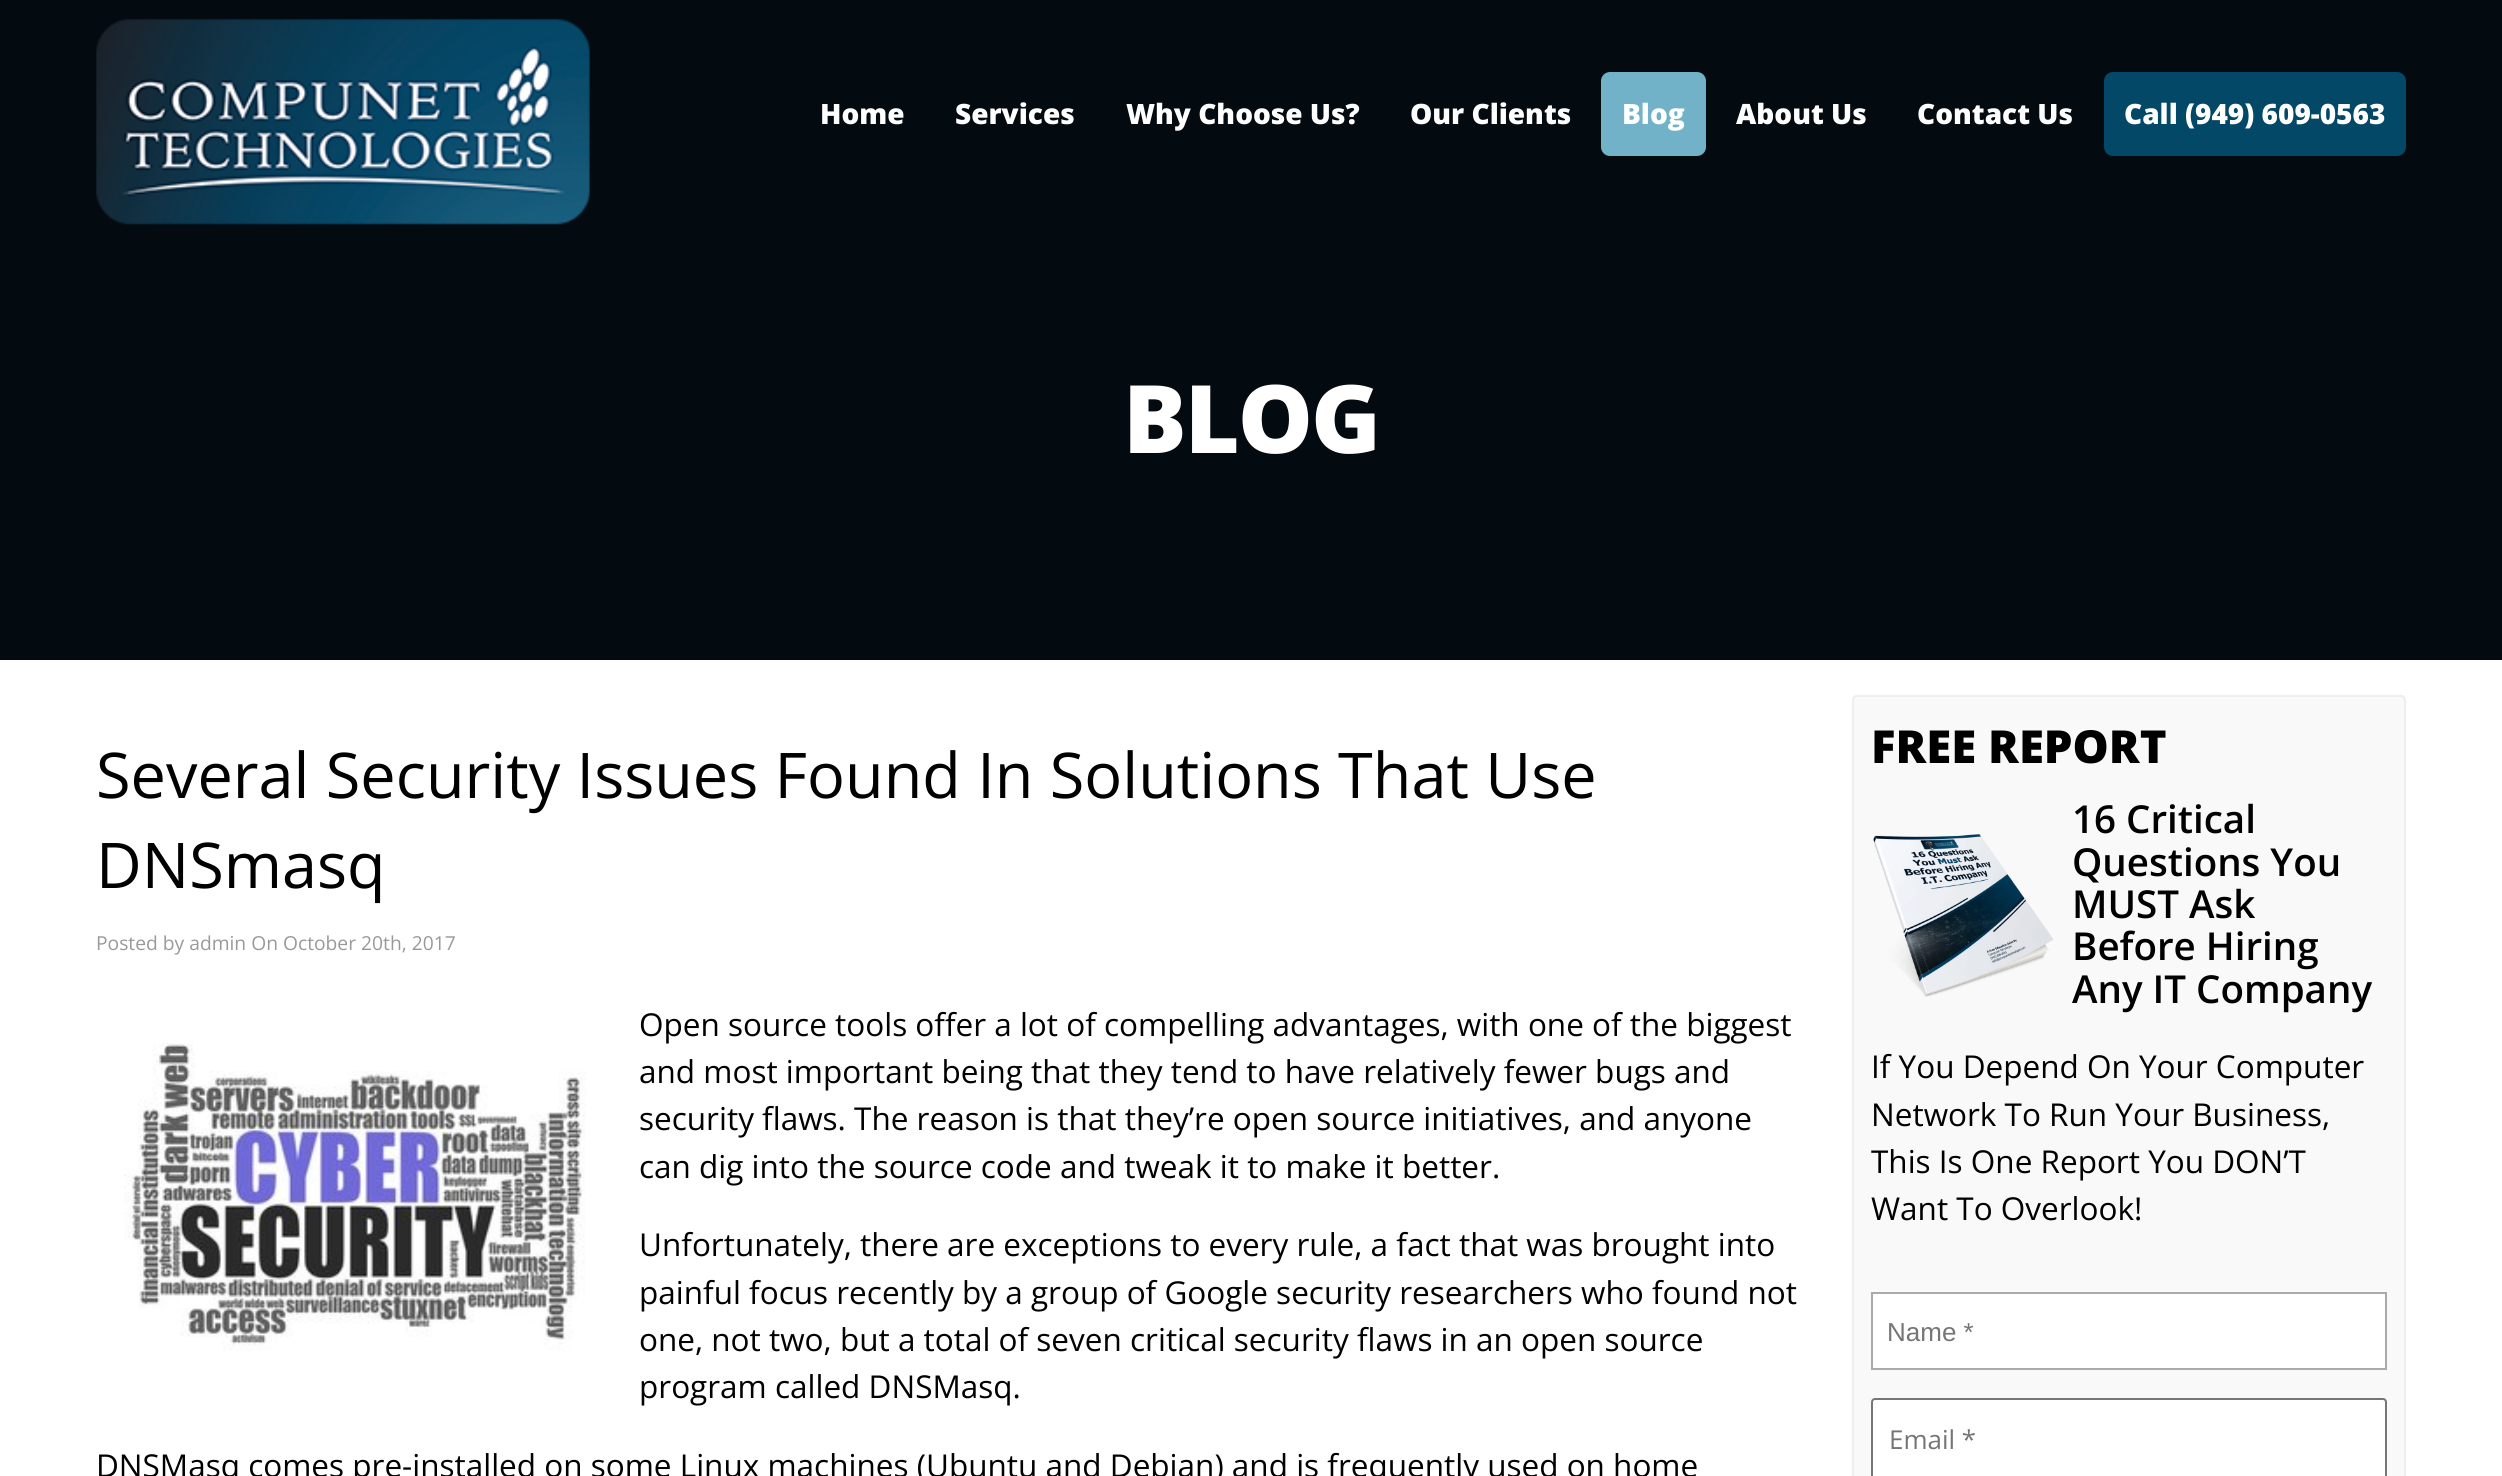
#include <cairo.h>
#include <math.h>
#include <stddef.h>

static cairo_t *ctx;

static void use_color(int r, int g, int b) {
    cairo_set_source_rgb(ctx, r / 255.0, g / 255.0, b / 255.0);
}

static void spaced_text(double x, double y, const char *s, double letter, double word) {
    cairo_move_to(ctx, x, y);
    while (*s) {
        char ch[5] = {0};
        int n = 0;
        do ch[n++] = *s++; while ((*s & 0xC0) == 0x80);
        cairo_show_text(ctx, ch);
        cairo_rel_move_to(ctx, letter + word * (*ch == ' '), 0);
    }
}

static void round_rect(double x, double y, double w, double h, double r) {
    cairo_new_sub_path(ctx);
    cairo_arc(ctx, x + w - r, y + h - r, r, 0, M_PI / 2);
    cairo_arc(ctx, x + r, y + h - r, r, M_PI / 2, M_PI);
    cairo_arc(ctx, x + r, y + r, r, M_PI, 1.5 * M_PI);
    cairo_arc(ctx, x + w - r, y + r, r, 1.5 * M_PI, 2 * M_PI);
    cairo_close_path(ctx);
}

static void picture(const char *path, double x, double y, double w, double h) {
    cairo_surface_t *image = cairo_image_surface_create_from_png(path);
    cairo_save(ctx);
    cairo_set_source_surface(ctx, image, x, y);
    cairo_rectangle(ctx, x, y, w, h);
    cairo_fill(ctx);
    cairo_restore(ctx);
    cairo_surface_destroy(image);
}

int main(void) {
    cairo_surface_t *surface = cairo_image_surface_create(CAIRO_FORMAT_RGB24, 2502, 1476);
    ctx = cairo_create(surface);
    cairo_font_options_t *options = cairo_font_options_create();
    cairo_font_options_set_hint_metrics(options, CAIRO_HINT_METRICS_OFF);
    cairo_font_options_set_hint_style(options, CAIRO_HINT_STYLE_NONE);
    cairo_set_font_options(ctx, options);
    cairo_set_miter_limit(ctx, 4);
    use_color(255, 255, 255);
    cairo_paint(ctx);
    use_color(4, 11, 16);
    cairo_rectangle(ctx, 0, 0, 2502, 660);
    cairo_fill(ctx);
    picture("img1.png", 96, 18, 494, 207);
    cairo_select_font_face(ctx, "Open Sans ExtraBold", CAIRO_FONT_SLANT_NORMAL, CAIRO_FONT_WEIGHT_NORMAL);
    cairo_set_font_size(ctx, 28);
    use_color(255, 255, 255);
    cairo_move_to(ctx, 820, 124);
    cairo_show_text(ctx, "Home");
    cairo_move_to(ctx, 955, 124);
    cairo_show_text(ctx, "Services");
    cairo_move_to(ctx, 1126, 124);
    cairo_show_text(ctx, "Why Choose Us?");
    cairo_move_to(ctx, 1410, 124);
    cairo_show_text(ctx, "Our Clients");
    use_color(113, 178, 201);
    round_rect(1601, 72, 105, 84, 9);
    cairo_fill(ctx);
    use_color(255, 255, 255);
    cairo_move_to(ctx, 1622, 124);
    cairo_show_text(ctx, "Blog");
    cairo_move_to(ctx, 1736, 124);
    cairo_show_text(ctx, "About Us");
    cairo_move_to(ctx, 1917, 124);
    cairo_show_text(ctx, "Contact Us");
    use_color(3, 72, 103);
    round_rect(2104, 72, 302, 84, 9);
    cairo_fill(ctx);
    use_color(255, 255, 255);
    cairo_move_to(ctx, 2124, 124);
    cairo_show_text(ctx, "Call (949) 609-0563");
    cairo_set_font_size(ctx, 94.5);
    spaced_text(1123, 453, "BLOG", -2, 0);
    cairo_select_font_face(ctx, "Open Sans", CAIRO_FONT_SLANT_NORMAL, CAIRO_FONT_WEIGHT_NORMAL);
    cairo_set_font_size(ctx, 63);
    use_color(0, 0, 0);
    cairo_move_to(ctx, 96, 798);
    cairo_show_text(ctx, "Several Security Issues Found In Solutions That Use");
    cairo_move_to(ctx, 96, 888);
    cairo_show_text(ctx, "DNSmasq");
    cairo_set_font_size(ctx, 19.25);
    use_color(153, 153, 153);
    cairo_move_to(ctx, 96, 950);
    cairo_show_text(ctx, "Posted by admin On October 20th, 2017");
    picture("img2.png", 124, 1043, 462, 308);
    cairo_set_font_size(ctx, 31.5);
    use_color(0, 0, 0);
    cairo_move_to(ctx, 639, 1036);
    cairo_show_text(ctx, "Open source tools offer a lot of compelling advantages, with one of the biggest");
    cairo_move_to(ctx, 639, 1083);
    cairo_show_text(ctx, "and most important being that they tend to have relatively fewer bugs and");
    cairo_move_to(ctx, 639, 1130);
    cairo_show_text(ctx, "security flaws. The reason is that they’re open source initiatives, and anyone");
    cairo_move_to(ctx, 639, 1178);
    cairo_show_text(ctx, "can dig into the source code and tweak it to make it better.");
    cairo_move_to(ctx, 639, 1256);
    cairo_show_text(ctx, "Unfortunately, there are exceptions to every rule, a fact that was brought into");
    cairo_move_to(ctx, 639, 1304);
    cairo_show_text(ctx, "painful focus recently by a group of Google security researchers who found not");
    cairo_move_to(ctx, 639, 1351);
    cairo_show_text(ctx, "one, not two, but a total of seven critical security flaws in an open source");
    cairo_move_to(ctx, 639, 1398);
    cairo_show_text(ctx, "program called DNSMasq.");
    cairo_move_to(ctx, 96, 1477);
    cairo_show_text(ctx, "DNSMasq comes pre-installed on some Linux machines (Ubuntu and Debian) and is frequently used on home");
    use_color(249, 249, 249);
    round_rect(1853, 696, 552, 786, 4);
    cairo_fill_preserve(ctx);
    use_color(238, 238, 238);
    cairo_stroke(ctx);
    cairo_select_font_face(ctx, "Open Sans ExtraBold", CAIRO_FONT_SLANT_NORMAL, CAIRO_FONT_WEIGHT_NORMAL);
    cairo_set_font_size(ctx, 45.5);
    use_color(0, 0, 0);
    cairo_move_to(ctx, 1871, 763);
    cairo_show_text(ctx, "FREE REPORT");
    picture("img3.png", 1873, 834, 181, 163);
    cairo_select_font_face(ctx, "Open Sans SemiBold", CAIRO_FONT_SLANT_NORMAL, CAIRO_FONT_WEIGHT_NORMAL);
    cairo_set_font_size(ctx, 38.5);
    cairo_move_to(ctx, 2072, 833);
    cairo_show_text(ctx, "16 Critical");
    cairo_move_to(ctx, 2072, 876);
    cairo_show_text(ctx, "Questions You");
    cairo_move_to(ctx, 2072, 918);
    cairo_show_text(ctx, "MUST Ask");
    cairo_move_to(ctx, 2072, 960);
    cairo_show_text(ctx, "Before Hiring");
    cairo_move_to(ctx, 2072, 1003);
    cairo_show_text(ctx, "Any IT Company");
    cairo_select_font_face(ctx, "Open Sans", CAIRO_FONT_SLANT_NORMAL, CAIRO_FONT_WEIGHT_NORMAL);
    cairo_set_font_size(ctx, 31.5);
    cairo_move_to(ctx, 1871, 1078);
    cairo_show_text(ctx, "If You Depend On Your Computer");
    cairo_move_to(ctx, 1871, 1126);
    cairo_show_text(ctx, "Network To Run Your Business,");
    cairo_move_to(ctx, 1871, 1173);
    cairo_show_text(ctx, "This Is One Report You DON’T");
    cairo_move_to(ctx, 1871, 1220);
    cairo_show_text(ctx, "Want To Overlook!");
    use_color(255, 255, 255);
    cairo_rectangle(ctx, 1872, 1293, 514, 76);
    cairo_fill_preserve(ctx);
    use_color(170, 170, 170);
    cairo_stroke(ctx);
    cairo_select_font_face(ctx, "Liberation Sans", CAIRO_FONT_SLANT_NORMAL, CAIRO_FONT_WEIGHT_NORMAL);
    cairo_set_font_size(ctx, 26);
    use_color(117, 117, 117);
    cairo_move_to(ctx, 1887, 1341);
    cairo_show_text(ctx, "Name *");
    use_color(255, 255, 255);
    round_rect(1872, 1399, 514, 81, 3);
    cairo_fill_preserve(ctx);
    use_color(118, 118, 118);
    cairo_stroke(ctx);
    cairo_select_font_face(ctx, "Open Sans", CAIRO_FONT_SLANT_NORMAL, CAIRO_FONT_WEIGHT_NORMAL);
    use_color(117, 117, 117);
    cairo_move_to(ctx, 1889, 1449);
    cairo_show_text(ctx, "Email *");
    cairo_surface_write_to_png(surface, "result.png");
    cairo_font_options_destroy(options);
    cairo_destroy(ctx);
    cairo_surface_destroy(surface);
    return 0;
}
